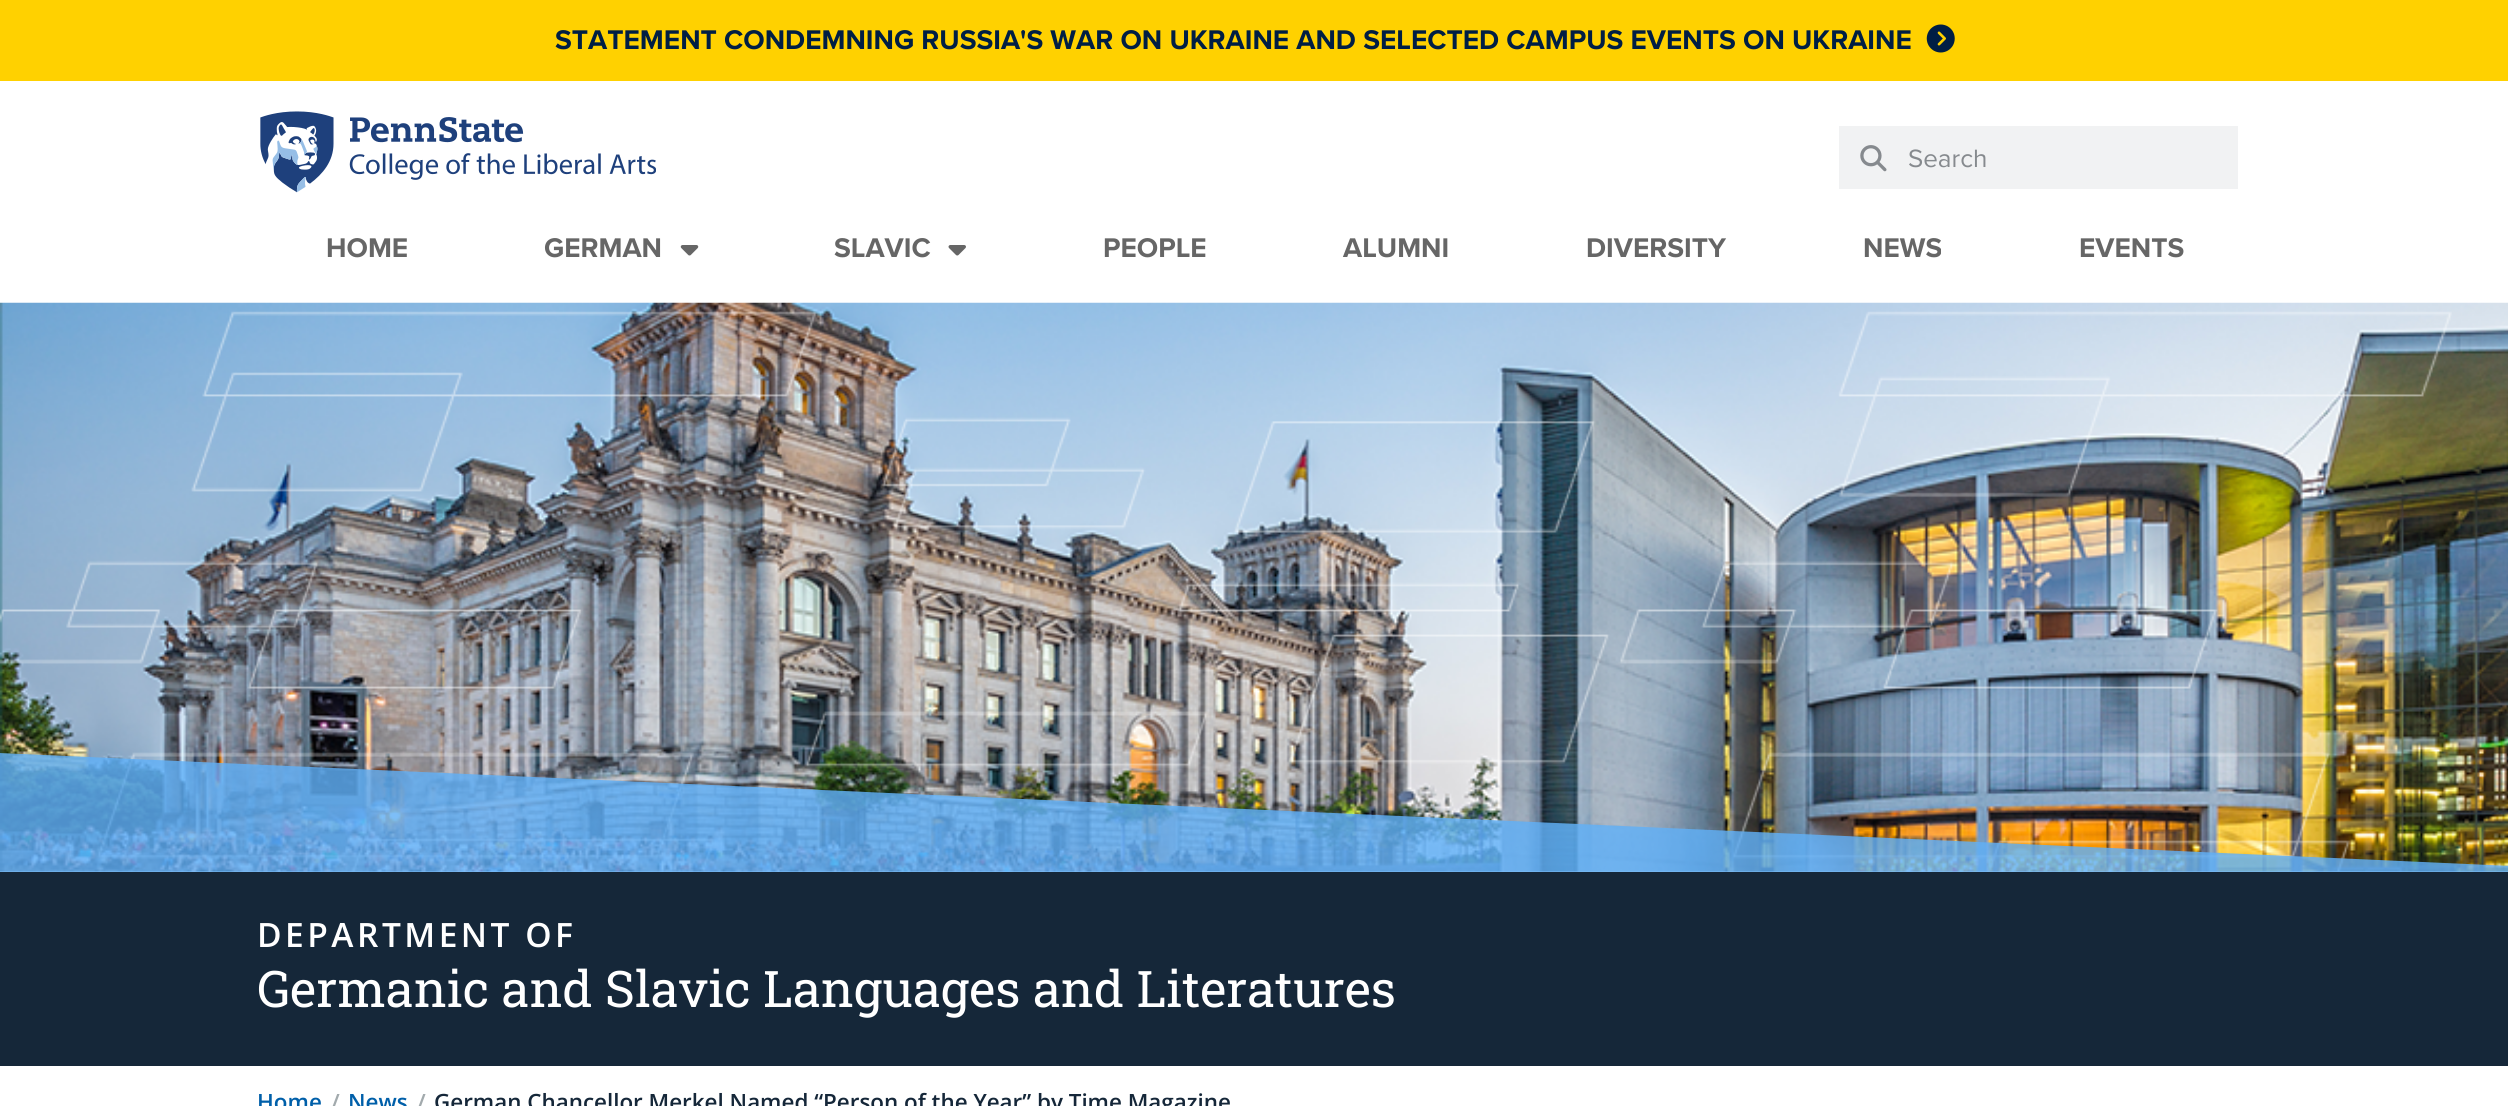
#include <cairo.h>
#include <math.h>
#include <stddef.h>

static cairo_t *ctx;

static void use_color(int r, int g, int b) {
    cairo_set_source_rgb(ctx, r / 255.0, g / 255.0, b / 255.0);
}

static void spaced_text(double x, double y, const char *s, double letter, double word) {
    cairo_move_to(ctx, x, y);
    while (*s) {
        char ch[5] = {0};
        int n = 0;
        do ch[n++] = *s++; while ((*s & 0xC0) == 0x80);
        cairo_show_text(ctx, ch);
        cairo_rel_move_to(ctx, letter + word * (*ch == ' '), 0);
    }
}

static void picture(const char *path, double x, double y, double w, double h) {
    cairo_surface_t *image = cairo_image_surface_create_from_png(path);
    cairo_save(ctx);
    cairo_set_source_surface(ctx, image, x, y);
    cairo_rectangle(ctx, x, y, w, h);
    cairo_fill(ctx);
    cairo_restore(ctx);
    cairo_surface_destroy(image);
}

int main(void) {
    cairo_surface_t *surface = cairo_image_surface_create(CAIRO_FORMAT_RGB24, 2508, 1106);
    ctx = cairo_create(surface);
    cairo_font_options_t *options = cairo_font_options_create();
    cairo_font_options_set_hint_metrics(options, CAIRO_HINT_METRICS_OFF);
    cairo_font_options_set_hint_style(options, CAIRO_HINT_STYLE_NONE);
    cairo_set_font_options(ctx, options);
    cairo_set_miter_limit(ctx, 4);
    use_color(255, 255, 255);
    cairo_paint(ctx);
    use_color(255, 209, 0);
    cairo_rectangle(ctx, 0, 0, 2508, 81);
    cairo_fill(ctx);
    cairo_select_font_face(ctx, "Proxima Nova", CAIRO_FONT_SLANT_NORMAL, CAIRO_FONT_WEIGHT_BOLD);
    cairo_set_font_size(ctx, 28);
    use_color(0, 30, 68);
    cairo_move_to(ctx, 555, 49);
    cairo_show_text(ctx, "STATEMENT CONDEMNING RUSSIA'S WAR ON UKRAINE AND SELECTED CAMPUS EVENTS ON UKRAINE");
    picture("img1.png", 1926, 24, 29, 29);
    picture("img2.png", 260, 111, 396, 82);
    use_color(241, 242, 243);
    cairo_rectangle(ctx, 1839, 126, 399, 63);
    cairo_fill(ctx);
    picture("img3.png", 1860, 145, 27, 27);
    cairo_select_font_face(ctx, "Proxima Nova", CAIRO_FONT_SLANT_NORMAL, CAIRO_FONT_WEIGHT_NORMAL);
    cairo_set_font_size(ctx, 26);
    use_color(134, 138, 142);
    cairo_move_to(ctx, 1908, 167);
    cairo_show_text(ctx, "Search");
    cairo_select_font_face(ctx, "Proxima Nova", CAIRO_FONT_SLANT_NORMAL, CAIRO_FONT_WEIGHT_BOLD);
    cairo_set_font_size(ctx, 28);
    use_color(102, 102, 102);
    cairo_move_to(ctx, 326, 257);
    cairo_show_text(ctx, "HOME");
    cairo_move_to(ctx, 544, 257);
    cairo_show_text(ctx, "GERMAN");
    picture("img4.png", 680, 245, 19, 11);
    cairo_move_to(ctx, 834, 257);
    cairo_show_text(ctx, "SLAVIC");
    picture("img5.png", 948, 245, 18, 11);
    cairo_move_to(ctx, 1103, 257);
    cairo_show_text(ctx, "PEOPLE");
    cairo_move_to(ctx, 1343, 257);
    cairo_show_text(ctx, "ALUMNI");
    cairo_move_to(ctx, 1586, 257);
    cairo_show_text(ctx, "DIVERSITY");
    cairo_move_to(ctx, 1863, 257);
    cairo_show_text(ctx, "NEWS");
    cairo_move_to(ctx, 2079, 257);
    cairo_show_text(ctx, "EVENTS");
    picture("img6.png", 0, 302, 2508, 570);
    picture("img7.png", 0, 311, 2452, 561);
    cairo_set_source_rgba(ctx, 0.38, 0.69, 0.965, 0.82);
    cairo_new_path(ctx);
    cairo_move_to(ctx, 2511, 866);
    cairo_line_to(ctx, 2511, 874);
    cairo_line_to(ctx, -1, 874);
    cairo_line_to(ctx, -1, 753);
    cairo_close_path(ctx);
    cairo_fill(ctx);
    use_color(21, 39, 57);
    cairo_rectangle(ctx, 0, 872, 2508, 194);
    cairo_fill(ctx);
    cairo_select_font_face(ctx, "Open Sans SemiBold", CAIRO_FONT_SLANT_NORMAL, CAIRO_FONT_WEIGHT_NORMAL);
    cairo_set_font_size(ctx, 33.5);
    use_color(255, 255, 255);
    spaced_text(257, 947, "DEPARTMENT OF", 3.5, 0);
    cairo_select_font_face(ctx, "Roboto Slab", CAIRO_FONT_SLANT_NORMAL, CAIRO_FONT_WEIGHT_NORMAL);
    cairo_set_font_size(ctx, 50.4);
    cairo_move_to(ctx, 257, 1007);
    cairo_show_text(ctx, "Germanic and Slavic Languages and Literatures");
    cairo_select_font_face(ctx, "Open Sans SemiBold", CAIRO_FONT_SLANT_NORMAL, CAIRO_FONT_WEIGHT_NORMAL);
    cairo_set_font_size(ctx, 22.4);
    use_color(0, 95, 169);
    cairo_move_to(ctx, 257, 1110);
    cairo_show_text(ctx, "Home");
    use_color(162, 170, 173);
    cairo_move_to(ctx, 331, 1110);
    cairo_show_text(ctx, "/");
    use_color(0, 95, 169);
    cairo_move_to(ctx, 348, 1110);
    cairo_show_text(ctx, "News");
    use_color(162, 170, 173);
    cairo_move_to(ctx, 417, 1110);
    cairo_show_text(ctx, "/");
    use_color(21, 39, 57);
    cairo_move_to(ctx, 434, 1110);
    cairo_show_text(ctx, "German Chancellor Merkel Named “Person of the Year” by Time Magazine");
    cairo_surface_write_to_png(surface, "result.png");
    cairo_font_options_destroy(options);
    cairo_destroy(ctx);
    cairo_surface_destroy(surface);
    return 0;
}
